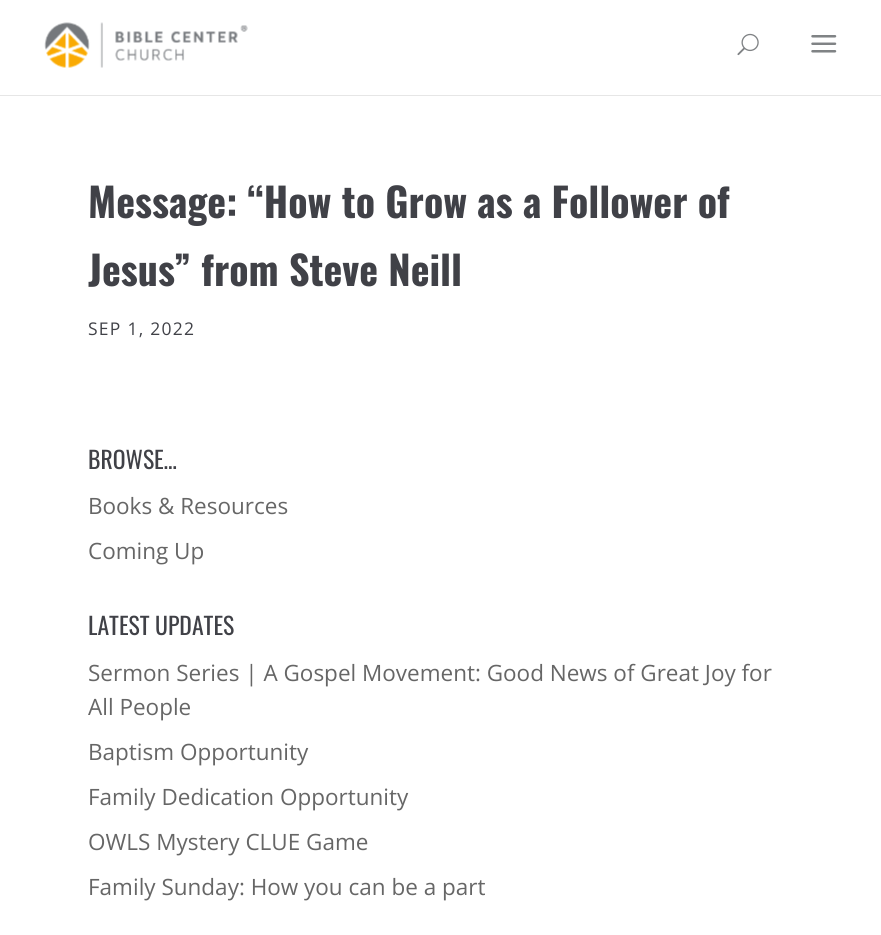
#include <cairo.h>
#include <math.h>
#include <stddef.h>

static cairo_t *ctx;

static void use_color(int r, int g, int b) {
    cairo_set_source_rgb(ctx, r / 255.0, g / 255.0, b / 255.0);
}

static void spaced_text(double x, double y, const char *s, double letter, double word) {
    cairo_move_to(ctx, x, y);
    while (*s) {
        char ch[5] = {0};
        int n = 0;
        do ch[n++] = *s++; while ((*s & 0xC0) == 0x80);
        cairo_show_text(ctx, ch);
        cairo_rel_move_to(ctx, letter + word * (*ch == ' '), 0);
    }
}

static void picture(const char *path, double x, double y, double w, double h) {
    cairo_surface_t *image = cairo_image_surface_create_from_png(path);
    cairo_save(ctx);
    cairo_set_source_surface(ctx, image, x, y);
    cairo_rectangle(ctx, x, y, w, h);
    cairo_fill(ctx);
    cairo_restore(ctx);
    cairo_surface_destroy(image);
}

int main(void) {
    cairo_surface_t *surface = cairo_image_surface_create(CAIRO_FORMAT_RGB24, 881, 935);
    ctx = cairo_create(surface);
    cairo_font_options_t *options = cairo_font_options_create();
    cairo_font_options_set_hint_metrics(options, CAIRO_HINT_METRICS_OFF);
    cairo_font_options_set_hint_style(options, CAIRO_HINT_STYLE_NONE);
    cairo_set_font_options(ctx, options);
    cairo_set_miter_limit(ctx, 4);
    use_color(255, 255, 255);
    cairo_paint(ctx);
    use_color(230, 230, 230);
    cairo_rectangle(ctx, 0, 95, 881, 1);
    cairo_fill(ctx);
    picture("img1.png", 44, 22, 204, 46);
    picture("img2.png", 737, 33, 22, 23);
    picture("img3.png", 811, 35, 26, 18);
    cairo_select_font_face(ctx, "Oswald", CAIRO_FONT_SLANT_NORMAL, CAIRO_FONT_WEIGHT_BOLD);
    cairo_set_font_size(ctx, 40);
    use_color(64, 65, 71);
    cairo_move_to(ctx, 88, 218);
    cairo_show_text(ctx, "Message: “How to Grow as a Follower of");
    cairo_move_to(ctx, 88, 286);
    cairo_show_text(ctx, "Jesus” from Steve Neill");
    cairo_select_font_face(ctx, "Open Sans", CAIRO_FONT_SLANT_NORMAL, CAIRO_FONT_WEIGHT_NORMAL);
    cairo_set_font_size(ctx, 17.5);
    spaced_text(88, 335, "SEP 1, 2022", 1.25, 0);
    cairo_select_font_face(ctx, "Oswald", CAIRO_FONT_SLANT_NORMAL, CAIRO_FONT_WEIGHT_NORMAL);
    cairo_set_font_size(ctx, 23.75);
    cairo_move_to(ctx, 88, 469);
    cairo_show_text(ctx, "BROWSE…");
    cairo_select_font_face(ctx, "Open Sans", CAIRO_FONT_SLANT_NORMAL, CAIRO_FONT_WEIGHT_NORMAL);
    cairo_set_font_size(ctx, 22.5);
    use_color(102, 102, 102);
    cairo_move_to(ctx, 88, 514);
    cairo_show_text(ctx, "Books & Resources");
    cairo_move_to(ctx, 88, 559);
    cairo_show_text(ctx, "Coming Up");
    cairo_select_font_face(ctx, "Oswald", CAIRO_FONT_SLANT_NORMAL, CAIRO_FONT_WEIGHT_NORMAL);
    cairo_set_font_size(ctx, 23.75);
    use_color(64, 65, 71);
    cairo_move_to(ctx, 88, 635);
    cairo_show_text(ctx, "LATEST UPDATES");
    cairo_select_font_face(ctx, "Open Sans", CAIRO_FONT_SLANT_NORMAL, CAIRO_FONT_WEIGHT_NORMAL);
    cairo_set_font_size(ctx, 22.5);
    use_color(102, 102, 102);
    cairo_move_to(ctx, 88, 681);
    cairo_show_text(ctx, "Sermon Series | A Gospel Movement: Good News of Great Joy for");
    cairo_move_to(ctx, 88, 715);
    cairo_show_text(ctx, "All People");
    cairo_move_to(ctx, 88, 760);
    cairo_show_text(ctx, "Baptism Opportunity");
    cairo_move_to(ctx, 88, 805);
    cairo_show_text(ctx, "Family Dedication Opportunity");
    cairo_move_to(ctx, 88, 850);
    cairo_show_text(ctx, "OWLS Mystery CLUE Game");
    cairo_move_to(ctx, 88, 895);
    cairo_show_text(ctx, "Family Sunday: How you can be a part");
    cairo_surface_write_to_png(surface, "result.png");
    cairo_font_options_destroy(options);
    cairo_destroy(ctx);
    cairo_surface_destroy(surface);
    return 0;
}
